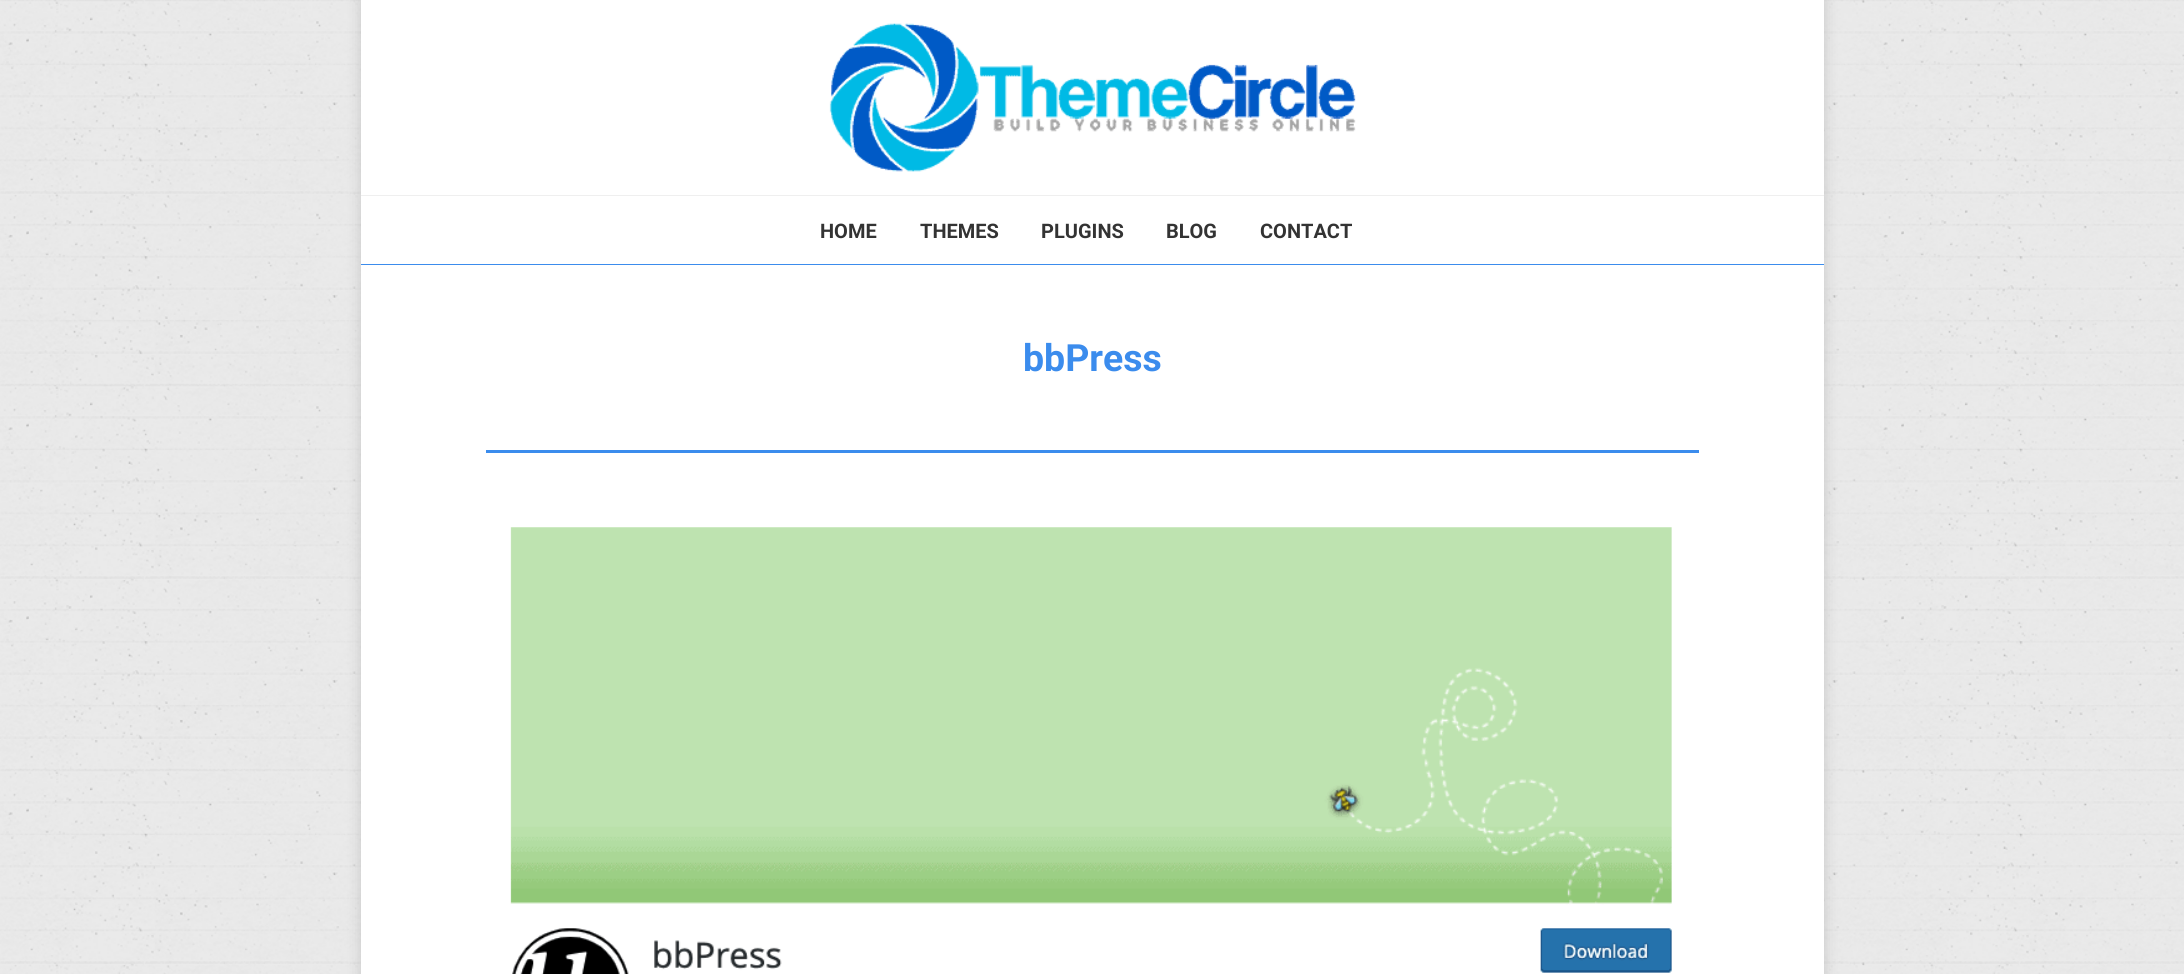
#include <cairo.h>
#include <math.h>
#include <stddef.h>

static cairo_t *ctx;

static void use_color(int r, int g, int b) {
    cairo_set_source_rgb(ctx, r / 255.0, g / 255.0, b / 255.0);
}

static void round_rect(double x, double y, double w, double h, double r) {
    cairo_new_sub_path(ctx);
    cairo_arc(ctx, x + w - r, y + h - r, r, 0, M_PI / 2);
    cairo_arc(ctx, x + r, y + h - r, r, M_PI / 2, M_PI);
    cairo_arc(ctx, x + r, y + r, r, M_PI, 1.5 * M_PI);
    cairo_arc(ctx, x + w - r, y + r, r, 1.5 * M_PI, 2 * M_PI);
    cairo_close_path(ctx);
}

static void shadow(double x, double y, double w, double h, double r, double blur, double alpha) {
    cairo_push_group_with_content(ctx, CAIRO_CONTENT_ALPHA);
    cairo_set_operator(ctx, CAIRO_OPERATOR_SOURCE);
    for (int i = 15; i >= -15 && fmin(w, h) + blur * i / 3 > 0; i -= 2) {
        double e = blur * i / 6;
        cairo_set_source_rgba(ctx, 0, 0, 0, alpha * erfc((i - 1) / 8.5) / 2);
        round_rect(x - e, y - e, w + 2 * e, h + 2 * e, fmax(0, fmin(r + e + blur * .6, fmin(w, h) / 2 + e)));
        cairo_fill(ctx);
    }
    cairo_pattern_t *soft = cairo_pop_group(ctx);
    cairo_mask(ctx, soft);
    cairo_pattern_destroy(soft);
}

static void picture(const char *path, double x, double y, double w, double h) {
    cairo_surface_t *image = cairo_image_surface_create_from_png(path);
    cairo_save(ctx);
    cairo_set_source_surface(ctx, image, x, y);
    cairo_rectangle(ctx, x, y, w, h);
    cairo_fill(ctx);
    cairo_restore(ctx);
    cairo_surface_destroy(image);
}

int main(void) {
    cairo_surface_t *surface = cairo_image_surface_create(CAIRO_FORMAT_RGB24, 2184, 974);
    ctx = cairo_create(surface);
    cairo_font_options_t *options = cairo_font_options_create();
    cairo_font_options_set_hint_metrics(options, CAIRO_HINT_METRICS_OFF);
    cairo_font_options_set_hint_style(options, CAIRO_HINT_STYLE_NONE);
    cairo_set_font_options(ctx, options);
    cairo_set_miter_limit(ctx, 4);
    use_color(255, 255, 255);
    cairo_paint(ctx);
    picture("img1.png", 0, 0, 2184, 974);
    use_color(0, 0, 0);
    shadow(361, 0, 1463, 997, 0, 7.5, 0.15);
    use_color(255, 255, 255);
    cairo_rectangle(ctx, 361, 0, 1463, 974);
    cairo_fill(ctx);
    use_color(59, 140, 237);
    cairo_rectangle(ctx, 361, 264, 1463, 1);
    cairo_fill(ctx);
    picture("img2.png", 829, 23, 527, 149);
    use_color(239, 239, 239);
    cairo_rectangle(ctx, 361, 195, 1463, 1);
    cairo_fill(ctx);
    cairo_select_font_face(ctx, "Roboto", CAIRO_FONT_SLANT_NORMAL, CAIRO_FONT_WEIGHT_BOLD);
    cairo_set_font_size(ctx, 20);
    use_color(51, 51, 51);
    cairo_move_to(ctx, 820, 238);
    cairo_show_text(ctx, "HOME");
    cairo_move_to(ctx, 920, 238);
    cairo_show_text(ctx, "THEMES");
    cairo_move_to(ctx, 1041, 238);
    cairo_show_text(ctx, "PLUGINS");
    cairo_move_to(ctx, 1166, 238);
    cairo_show_text(ctx, "BLOG");
    cairo_move_to(ctx, 1260, 238);
    cairo_show_text(ctx, "CONTACT");
    cairo_set_font_size(ctx, 37.5);
    use_color(59, 140, 237);
    cairo_move_to(ctx, 1023, 371);
    cairo_show_text(ctx, "bbPress");
    cairo_rectangle(ctx, 486, 450, 1213, 3);
    cairo_fill(ctx);
    picture("img3.png", 510, 527, 1162, 447);
    cairo_surface_write_to_png(surface, "result.png");
    cairo_font_options_destroy(options);
    cairo_destroy(ctx);
    cairo_surface_destroy(surface);
    return 0;
}
